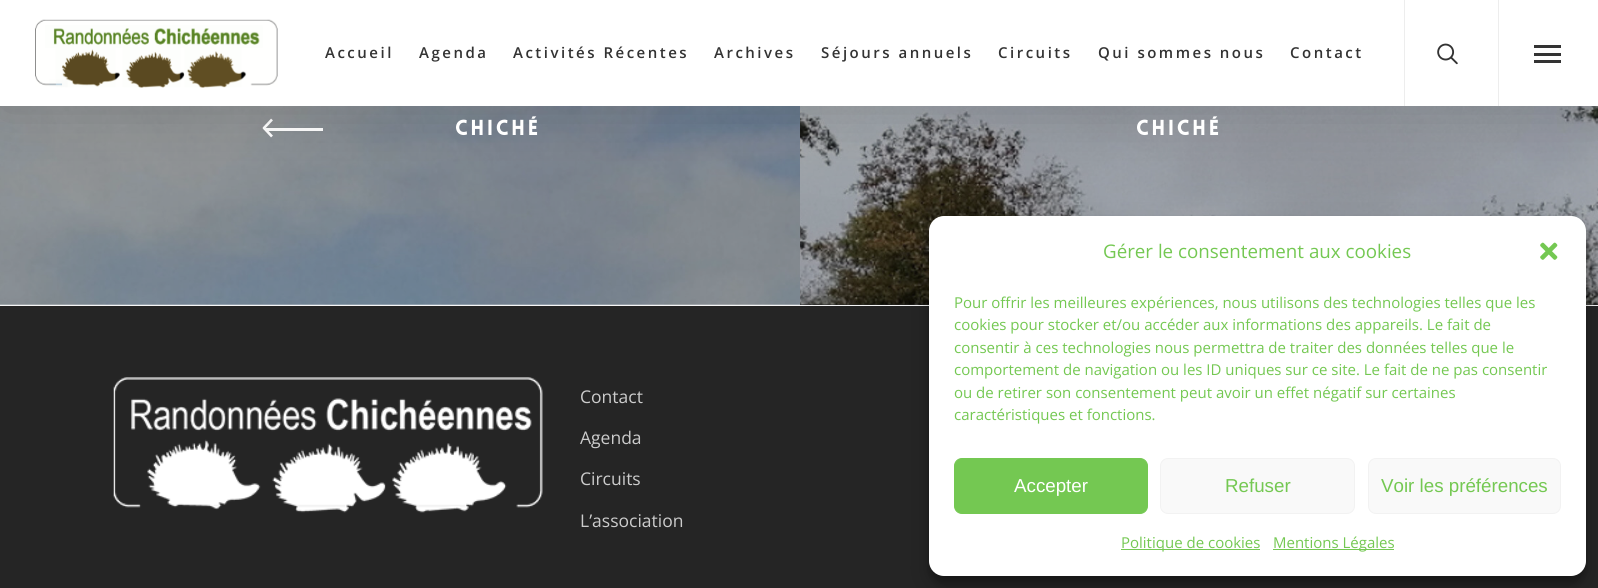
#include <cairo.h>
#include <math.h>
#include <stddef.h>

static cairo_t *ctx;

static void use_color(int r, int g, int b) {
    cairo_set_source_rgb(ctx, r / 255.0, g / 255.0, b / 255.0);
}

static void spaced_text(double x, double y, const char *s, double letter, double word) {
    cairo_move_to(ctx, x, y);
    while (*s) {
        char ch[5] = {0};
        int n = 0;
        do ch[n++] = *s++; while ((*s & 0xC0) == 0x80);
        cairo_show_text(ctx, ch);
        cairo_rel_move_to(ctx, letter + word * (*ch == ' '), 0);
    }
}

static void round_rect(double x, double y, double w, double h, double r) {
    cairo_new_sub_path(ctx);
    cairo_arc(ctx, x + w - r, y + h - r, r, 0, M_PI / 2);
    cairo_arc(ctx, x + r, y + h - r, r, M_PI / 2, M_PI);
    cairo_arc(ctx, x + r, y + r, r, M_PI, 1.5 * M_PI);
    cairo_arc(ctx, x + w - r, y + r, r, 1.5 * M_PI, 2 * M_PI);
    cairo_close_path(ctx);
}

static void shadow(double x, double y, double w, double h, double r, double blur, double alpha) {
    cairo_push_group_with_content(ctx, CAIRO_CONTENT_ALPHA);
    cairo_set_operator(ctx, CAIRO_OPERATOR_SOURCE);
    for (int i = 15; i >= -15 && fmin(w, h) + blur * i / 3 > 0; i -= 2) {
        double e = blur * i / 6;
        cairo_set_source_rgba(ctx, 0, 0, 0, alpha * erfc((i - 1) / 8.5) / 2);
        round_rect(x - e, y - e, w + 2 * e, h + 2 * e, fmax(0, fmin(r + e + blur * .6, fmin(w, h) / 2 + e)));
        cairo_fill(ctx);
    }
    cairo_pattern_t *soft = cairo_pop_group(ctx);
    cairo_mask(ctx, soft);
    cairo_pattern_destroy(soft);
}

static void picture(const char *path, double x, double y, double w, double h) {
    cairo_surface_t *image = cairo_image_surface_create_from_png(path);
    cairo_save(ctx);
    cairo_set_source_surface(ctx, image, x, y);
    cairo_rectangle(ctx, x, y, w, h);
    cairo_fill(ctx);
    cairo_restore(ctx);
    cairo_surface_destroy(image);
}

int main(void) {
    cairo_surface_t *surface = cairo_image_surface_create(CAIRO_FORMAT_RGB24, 1598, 588);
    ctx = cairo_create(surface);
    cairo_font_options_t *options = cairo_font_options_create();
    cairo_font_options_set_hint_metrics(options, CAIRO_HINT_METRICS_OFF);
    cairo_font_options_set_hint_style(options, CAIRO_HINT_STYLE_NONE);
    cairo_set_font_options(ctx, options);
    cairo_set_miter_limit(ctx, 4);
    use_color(246, 246, 246);
    cairo_paint(ctx);
    picture("img3.png", 0, 106, 800, 199);
    cairo_new_path(ctx);
    cairo_move_to(ctx, 272, 136.5);
    cairo_line_to(ctx, 263.5, 127.5);
    cairo_move_to(ctx, 272, 119.5);
    cairo_line_to(ctx, 263.5, 128.5);
    use_color(255, 255, 255);
    cairo_set_line_width(ctx, 2.6);
    cairo_stroke(ctx);
    cairo_rectangle(ctx, 266, 128, 57, 3);
    cairo_fill(ctx);
    use_color(38, 38, 38);
    cairo_rectangle(ctx, 800, 304, 798, 1);
    cairo_fill(ctx);
    picture("img4.png", 800, 106, 798, 199);
    use_color(0, 0, 0);
    shadow(0, 4, 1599, 106, 0, 28, 0.15);
    use_color(255, 255, 255);
    cairo_rectangle(ctx, 0, 0, 1598, 106);
    cairo_fill(ctx);
    picture("img1.png", 35, 19, 243, 69);
    cairo_select_font_face(ctx, "Open Sans SemiBold", CAIRO_FONT_SLANT_NORMAL, CAIRO_FONT_WEIGHT_NORMAL);
    cairo_set_font_size(ctx, 15);
    use_color(51, 51, 51);
    spaced_text(325, 58, "Accueil", 2.5, 0);
    spaced_text(419, 58, "Agenda", 2.5, 0);
    spaced_text(513, 58, "Activités Récentes", 2.5, 0);
    spaced_text(714, 58, "Archives", 2.5, 0);
    spaced_text(821, 58, "Séjours annuels", 2.5, 0);
    spaced_text(998, 58, "Circuits", 2.5, 0);
    spaced_text(1098, 58, "Qui sommes nous", 2.5, 0);
    spaced_text(1290, 58, "Contact", 2.5, 0);
    use_color(237, 237, 237);
    cairo_rectangle(ctx, 1404, 0, 1, 106);
    cairo_fill(ctx);
    picture("img2.png", 1437, 43, 21, 22);
    cairo_rectangle(ctx, 1498, 0, 1, 106);
    cairo_fill(ctx);
    use_color(51, 51, 51);
    cairo_rectangle(ctx, 1534, 45, 27, 3);
    cairo_fill(ctx);
    cairo_rectangle(ctx, 1534, 60, 27, 3);
    cairo_fill(ctx);
    cairo_rectangle(ctx, 1534, 53, 27, 3);
    cairo_fill(ctx);
    cairo_select_font_face(ctx, "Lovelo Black", CAIRO_FONT_SLANT_NORMAL, CAIRO_FONT_WEIGHT_NORMAL);
    cairo_set_font_size(ctx, 21.25);
    use_color(255, 255, 255);
    spaced_text(455, 135, "Chiché", 2.5, 0);
    spaced_text(1136, 135, "chiché", 2.5, 0);
    use_color(37, 37, 37);
    cairo_rectangle(ctx, 0, 306, 1598, 282);
    cairo_fill(ctx);
    picture("img5.png", 113, 377, 430, 136);
    cairo_select_font_face(ctx, "Open Sans", CAIRO_FONT_SLANT_NORMAL, CAIRO_FONT_WEIGHT_NORMAL);
    cairo_set_font_size(ctx, 17.5);
    use_color(204, 204, 204);
    cairo_move_to(ctx, 580, 403);
    cairo_show_text(ctx, "Contact");
    cairo_move_to(ctx, 580, 444);
    cairo_show_text(ctx, "Agenda");
    cairo_move_to(ctx, 580, 485);
    cairo_show_text(ctx, "Circuits");
    cairo_move_to(ctx, 580, 527);
    cairo_show_text(ctx, "L’association");
    use_color(0, 0, 0);
    shadow(929, 224, 657, 360, 15, 4, 0.23);
    shadow(929, 229, 657, 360, 15, 12.5, 0.19);
    use_color(255, 255, 255);
    round_rect(929, 216, 657, 360, 15);
    cairo_fill(ctx);
    cairo_set_font_size(ctx, 18.75);
    use_color(116, 200, 82);
    cairo_move_to(ctx, 1103, 258);
    cairo_show_text(ctx, "Gérer le consentement aux cookies");
    picture("img6.png", 1540, 242, 18, 18);
    cairo_set_font_size(ctx, 15);
    cairo_move_to(ctx, 954, 308);
    cairo_show_text(ctx, "Pour offrir les meilleures expériences, nous utilisons des technologies telles que les");
    cairo_move_to(ctx, 954, 330);
    cairo_show_text(ctx, "cookies pour stocker et/ou accéder aux informations des appareils. Le fait de");
    cairo_move_to(ctx, 954, 353);
    cairo_show_text(ctx, "consentir à ces technologies nous permettra de traiter des données telles que le");
    cairo_move_to(ctx, 954, 375);
    cairo_show_text(ctx, "comportement de navigation ou les ID uniques sur ce site. Le fait de ne pas consentir");
    cairo_move_to(ctx, 954, 398);
    cairo_show_text(ctx, "ou de retirer son consentement peut avoir un effet négatif sur certaines");
    cairo_move_to(ctx, 954, 420);
    cairo_show_text(ctx, "caractéristiques et fonctions.");
    round_rect(954.5, 458.5, 193, 55, 7.5);
    cairo_fill_preserve(ctx);
    cairo_set_line_width(ctx, 1);
    cairo_stroke(ctx);
    cairo_select_font_face(ctx, "Liberation Sans", CAIRO_FONT_SLANT_NORMAL, CAIRO_FONT_WEIGHT_NORMAL);
    cairo_set_font_size(ctx, 18.75);
    use_color(255, 255, 255);
    cairo_move_to(ctx, 1014, 492);
    cairo_show_text(ctx, "Accepter");
    use_color(249, 249, 249);
    round_rect(1160.5, 458.5, 194, 55, 7.5);
    cairo_fill_preserve(ctx);
    use_color(242, 242, 242);
    cairo_stroke(ctx);
    use_color(116, 200, 82);
    cairo_move_to(ctx, 1225, 492);
    cairo_show_text(ctx, "Refuser");
    use_color(249, 249, 249);
    round_rect(1368.5, 458.5, 192, 55, 7.5);
    cairo_fill_preserve(ctx);
    use_color(242, 242, 242);
    cairo_stroke(ctx);
    use_color(116, 200, 82);
    cairo_move_to(ctx, 1381, 492);
    cairo_show_text(ctx, "Voir les préférences");
    cairo_rectangle(ctx, 1121, 549, 139, 1);
    cairo_fill(ctx);
    cairo_select_font_face(ctx, "Open Sans", CAIRO_FONT_SLANT_NORMAL, CAIRO_FONT_WEIGHT_NORMAL);
    cairo_set_font_size(ctx, 15);
    cairo_move_to(ctx, 1121, 548);
    cairo_show_text(ctx, "Politique de cookies");
    cairo_rectangle(ctx, 1273, 549, 121, 1);
    cairo_fill(ctx);
    cairo_move_to(ctx, 1273, 548);
    cairo_show_text(ctx, "Mentions Légales");
    cairo_surface_write_to_png(surface, "result.png");
    cairo_font_options_destroy(options);
    cairo_destroy(ctx);
    cairo_surface_destroy(surface);
    return 0;
}
